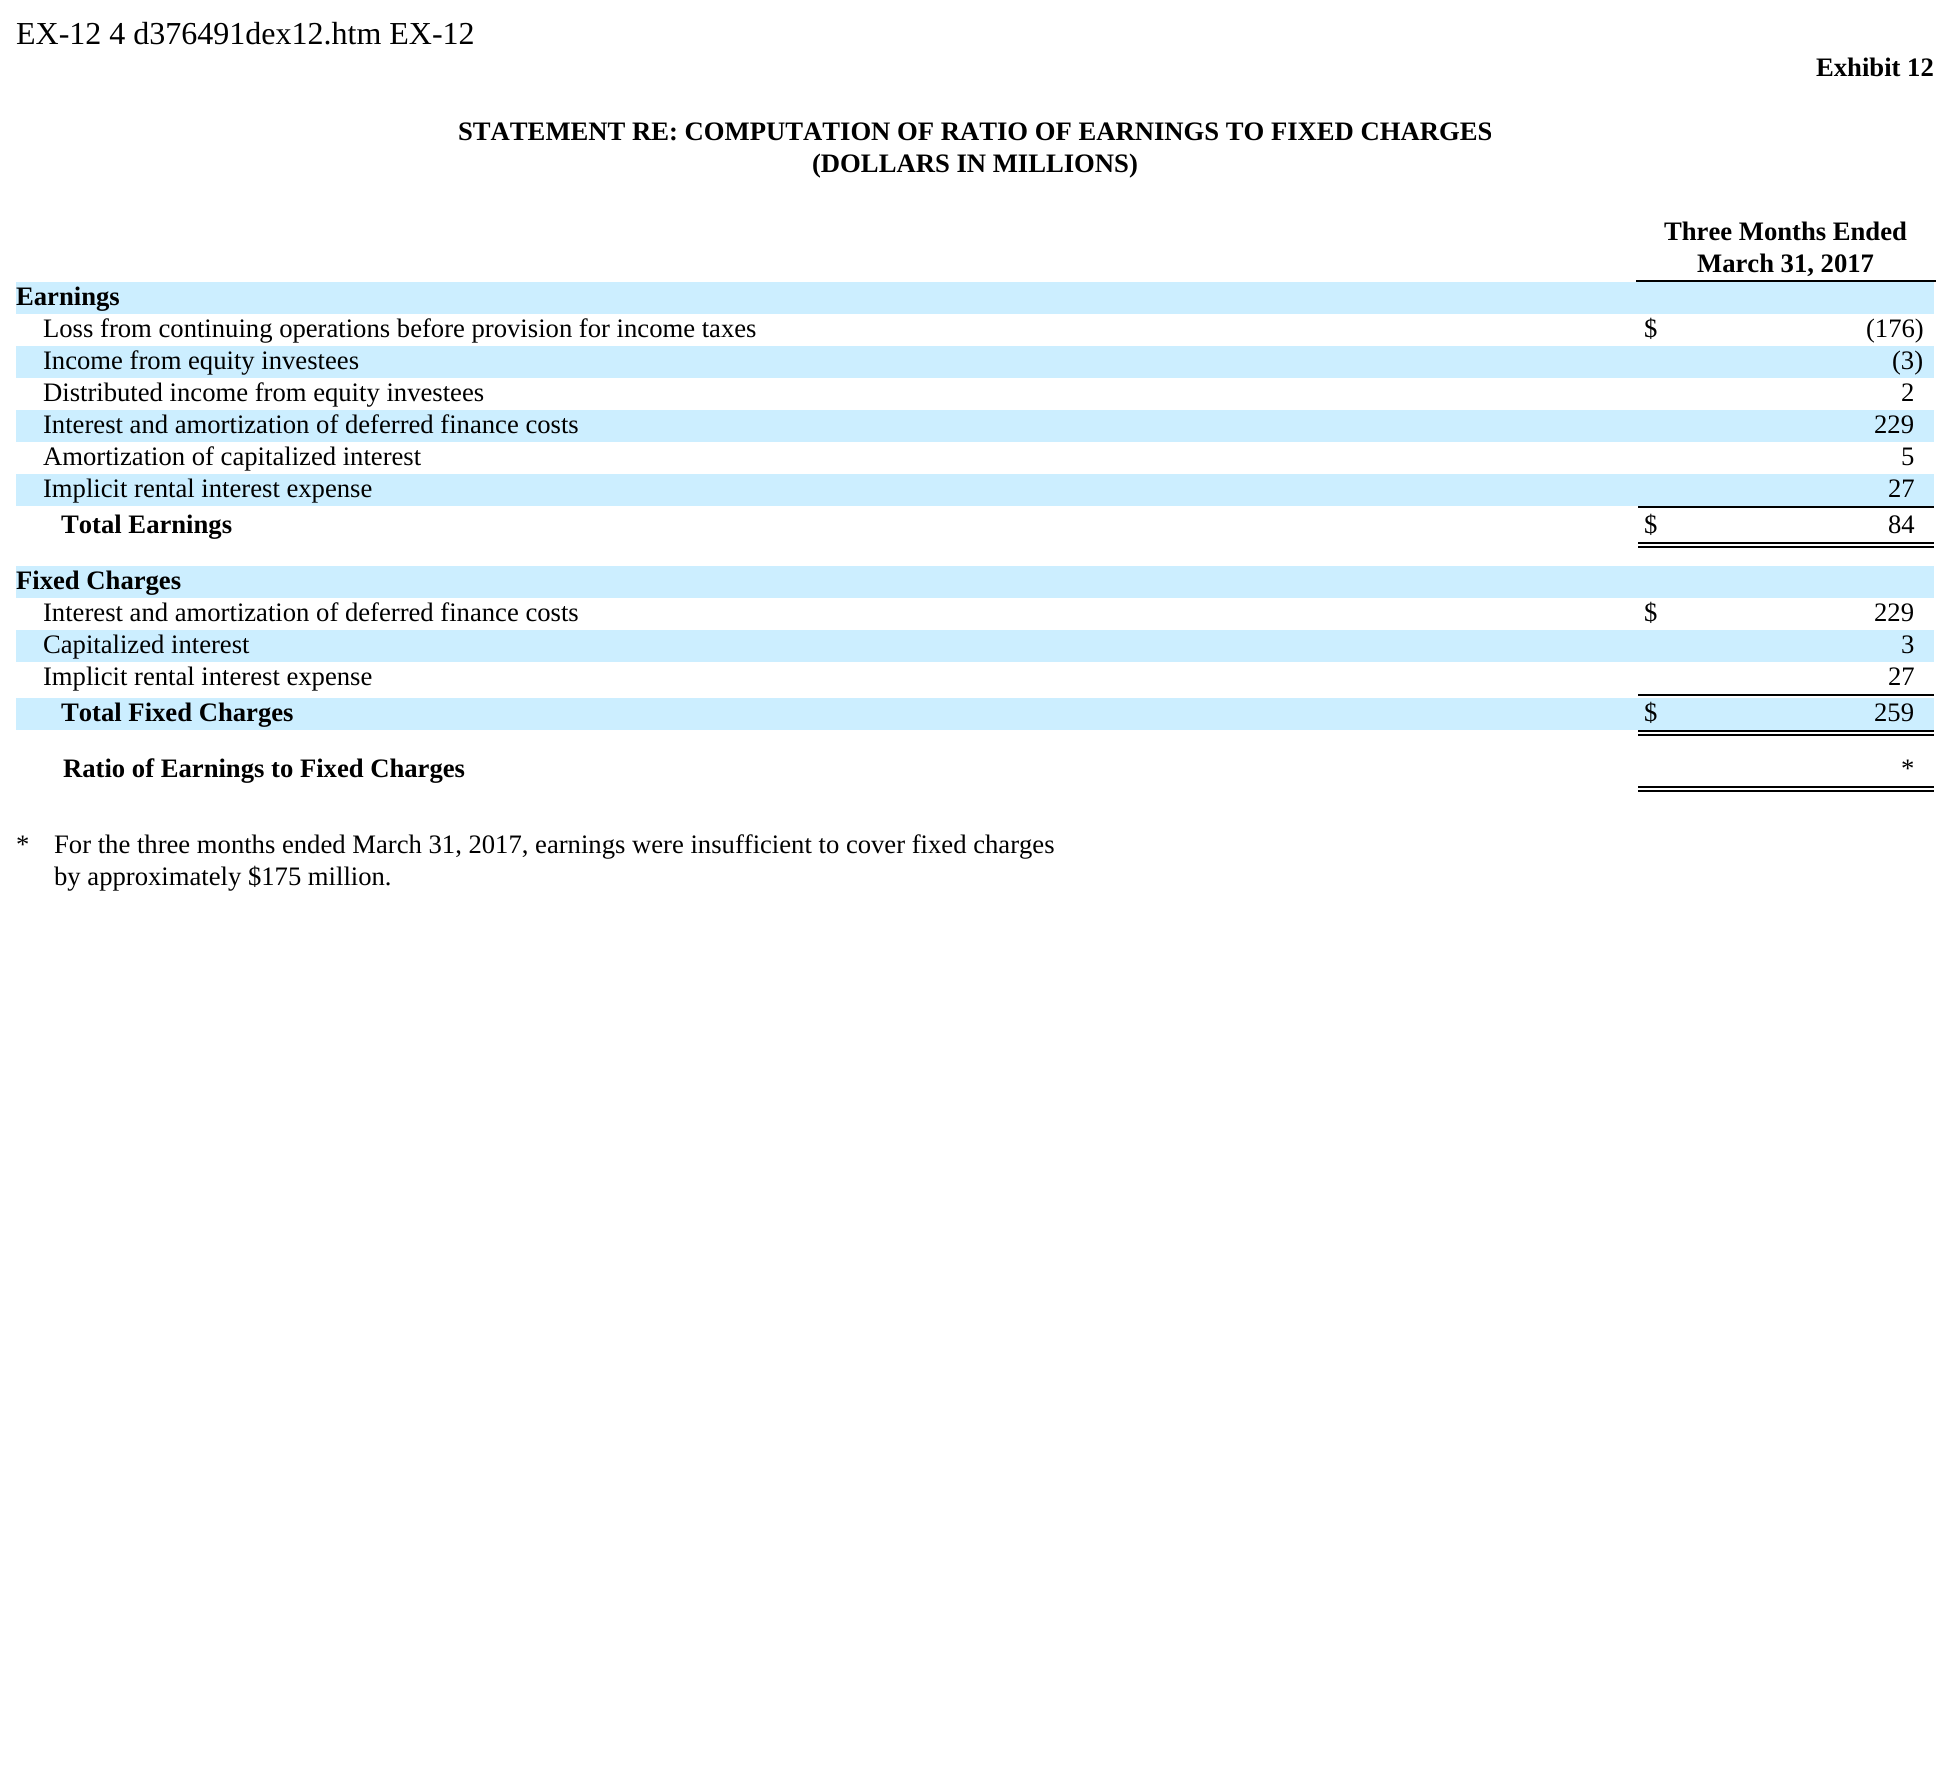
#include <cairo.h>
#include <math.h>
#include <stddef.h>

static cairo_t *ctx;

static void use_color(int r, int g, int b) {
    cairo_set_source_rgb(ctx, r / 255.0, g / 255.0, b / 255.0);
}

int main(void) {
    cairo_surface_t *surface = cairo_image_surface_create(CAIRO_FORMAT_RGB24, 1950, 1782);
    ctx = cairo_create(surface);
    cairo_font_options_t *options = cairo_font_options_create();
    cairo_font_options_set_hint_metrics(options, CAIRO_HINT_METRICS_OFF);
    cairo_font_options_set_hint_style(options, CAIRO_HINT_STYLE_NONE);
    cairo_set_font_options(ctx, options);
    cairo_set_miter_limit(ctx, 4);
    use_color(255, 255, 255);
    cairo_paint(ctx);
    cairo_select_font_face(ctx, "Liberation Serif", CAIRO_FONT_SLANT_NORMAL, CAIRO_FONT_WEIGHT_NORMAL);
    cairo_set_font_size(ctx, 32);
    use_color(0, 0, 0);
    cairo_move_to(ctx, 16, 44);
    cairo_show_text(ctx, "EX-12 4 d376491dex12.htm EX-12");
    cairo_select_font_face(ctx, "Liberation Serif", CAIRO_FONT_SLANT_NORMAL, CAIRO_FONT_WEIGHT_BOLD);
    cairo_set_font_size(ctx, 26.65);
    cairo_move_to(ctx, 1816, 76);
    cairo_show_text(ctx, "Exhibit 12");
    cairo_move_to(ctx, 458, 140);
    cairo_show_text(ctx, "STATEMENT RE: COMPUTATION OF RATIO OF EARNINGS TO FIXED CHARGES");
    cairo_move_to(ctx, 812, 172);
    cairo_show_text(ctx, "(DOLLARS IN MILLIONS)");
    cairo_move_to(ctx, 1664, 240);
    cairo_show_text(ctx, "Three Months Ended");
    cairo_rectangle(ctx, 1636, 280, 300, 2);
    cairo_fill(ctx);
    cairo_move_to(ctx, 1697, 272);
    cairo_show_text(ctx, "March 31, 2017");
    use_color(204, 238, 255);
    cairo_rectangle(ctx, 16, 282, 1918, 32);
    cairo_fill(ctx);
    use_color(0, 0, 0);
    cairo_move_to(ctx, 16, 305);
    cairo_show_text(ctx, "Earnings");
    cairo_select_font_face(ctx, "Liberation Serif", CAIRO_FONT_SLANT_NORMAL, CAIRO_FONT_WEIGHT_NORMAL);
    cairo_move_to(ctx, 43, 337);
    cairo_show_text(ctx, "Loss from continuing operations before provision for income taxes");
    cairo_move_to(ctx, 1644, 337);
    cairo_show_text(ctx, "$");
    cairo_move_to(ctx, 1866, 337);
    cairo_show_text(ctx, "(176)");
    use_color(204, 238, 255);
    cairo_rectangle(ctx, 16, 346, 1918, 32);
    cairo_fill(ctx);
    use_color(0, 0, 0);
    cairo_move_to(ctx, 43, 369);
    cairo_show_text(ctx, "Income from equity investees");
    cairo_move_to(ctx, 1892, 369);
    cairo_show_text(ctx, "(3)");
    cairo_move_to(ctx, 43, 401);
    cairo_show_text(ctx, "Distributed income from equity investees");
    cairo_move_to(ctx, 1901, 401);
    cairo_show_text(ctx, "2");
    use_color(204, 238, 255);
    cairo_rectangle(ctx, 16, 410, 1918, 32);
    cairo_fill(ctx);
    use_color(0, 0, 0);
    cairo_move_to(ctx, 43, 433);
    cairo_show_text(ctx, "Interest and amortization of deferred finance costs");
    cairo_move_to(ctx, 1874, 433);
    cairo_show_text(ctx, "229");
    cairo_move_to(ctx, 43, 465);
    cairo_show_text(ctx, "Amortization of capitalized interest");
    cairo_move_to(ctx, 1901, 465);
    cairo_show_text(ctx, "5");
    use_color(204, 238, 255);
    cairo_rectangle(ctx, 16, 474, 1918, 32);
    cairo_fill(ctx);
    use_color(0, 0, 0);
    cairo_move_to(ctx, 43, 497);
    cairo_show_text(ctx, "Implicit rental interest expense");
    cairo_move_to(ctx, 1888, 497);
    cairo_show_text(ctx, "27");
    cairo_rectangle(ctx, 1638, 506, 296, 2);
    cairo_fill(ctx);
    cairo_select_font_face(ctx, "Liberation Serif", CAIRO_FONT_SLANT_NORMAL, CAIRO_FONT_WEIGHT_BOLD);
    cairo_move_to(ctx, 61, 533);
    cairo_show_text(ctx, "Total Earnings");
    cairo_select_font_face(ctx, "Liberation Serif", CAIRO_FONT_SLANT_NORMAL, CAIRO_FONT_WEIGHT_NORMAL);
    cairo_move_to(ctx, 1644, 533);
    cairo_show_text(ctx, "$");
    cairo_move_to(ctx, 1888, 533);
    cairo_show_text(ctx, "84");
    cairo_rectangle(ctx, 1638, 542, 296, 2);
    cairo_fill(ctx);
    cairo_rectangle(ctx, 1638, 546, 296, 2);
    cairo_fill(ctx);
    use_color(204, 238, 255);
    cairo_rectangle(ctx, 16, 566, 1918, 32);
    cairo_fill(ctx);
    cairo_select_font_face(ctx, "Liberation Serif", CAIRO_FONT_SLANT_NORMAL, CAIRO_FONT_WEIGHT_BOLD);
    use_color(0, 0, 0);
    cairo_move_to(ctx, 16, 589);
    cairo_show_text(ctx, "Fixed Charges");
    cairo_select_font_face(ctx, "Liberation Serif", CAIRO_FONT_SLANT_NORMAL, CAIRO_FONT_WEIGHT_NORMAL);
    cairo_move_to(ctx, 43, 621);
    cairo_show_text(ctx, "Interest and amortization of deferred finance costs");
    cairo_move_to(ctx, 1644, 621);
    cairo_show_text(ctx, "$");
    cairo_move_to(ctx, 1874, 621);
    cairo_show_text(ctx, "229");
    use_color(204, 238, 255);
    cairo_rectangle(ctx, 16, 630, 1918, 32);
    cairo_fill(ctx);
    use_color(0, 0, 0);
    cairo_move_to(ctx, 43, 653);
    cairo_show_text(ctx, "Capitalized interest");
    cairo_move_to(ctx, 1901, 653);
    cairo_show_text(ctx, "3");
    cairo_move_to(ctx, 43, 685);
    cairo_show_text(ctx, "Implicit rental interest expense");
    cairo_move_to(ctx, 1888, 685);
    cairo_show_text(ctx, "27");
    cairo_rectangle(ctx, 1638, 694, 296, 2);
    cairo_fill(ctx);
    use_color(204, 238, 255);
    cairo_rectangle(ctx, 16, 698, 1918, 32);
    cairo_fill(ctx);
    cairo_select_font_face(ctx, "Liberation Serif", CAIRO_FONT_SLANT_NORMAL, CAIRO_FONT_WEIGHT_BOLD);
    use_color(0, 0, 0);
    cairo_move_to(ctx, 61, 721);
    cairo_show_text(ctx, "Total Fixed Charges");
    cairo_select_font_face(ctx, "Liberation Serif", CAIRO_FONT_SLANT_NORMAL, CAIRO_FONT_WEIGHT_NORMAL);
    cairo_move_to(ctx, 1644, 721);
    cairo_show_text(ctx, "$");
    cairo_move_to(ctx, 1874, 721);
    cairo_show_text(ctx, "259");
    cairo_rectangle(ctx, 1638, 730, 296, 2);
    cairo_fill(ctx);
    cairo_rectangle(ctx, 1638, 734, 296, 2);
    cairo_fill(ctx);
    cairo_select_font_face(ctx, "Liberation Serif", CAIRO_FONT_SLANT_NORMAL, CAIRO_FONT_WEIGHT_BOLD);
    cairo_move_to(ctx, 63, 777);
    cairo_show_text(ctx, "Ratio of Earnings to Fixed Charges");
    cairo_select_font_face(ctx, "Liberation Serif", CAIRO_FONT_SLANT_NORMAL, CAIRO_FONT_WEIGHT_NORMAL);
    cairo_move_to(ctx, 1901, 777);
    cairo_show_text(ctx, "*");
    cairo_rectangle(ctx, 1638, 786, 296, 2);
    cairo_fill(ctx);
    cairo_rectangle(ctx, 1638, 790, 296, 2);
    cairo_fill(ctx);
    cairo_move_to(ctx, 16, 853);
    cairo_show_text(ctx, "*");
    cairo_move_to(ctx, 54, 853);
    cairo_show_text(ctx, "For the three months ended March 31, 2017, earnings were insufficient to cover fixed charges");
    cairo_move_to(ctx, 54, 885);
    cairo_show_text(ctx, "by approximately $175 million.");
    cairo_surface_write_to_png(surface, "result.png");
    cairo_font_options_destroy(options);
    cairo_destroy(ctx);
    cairo_surface_destroy(surface);
    return 0;
}
